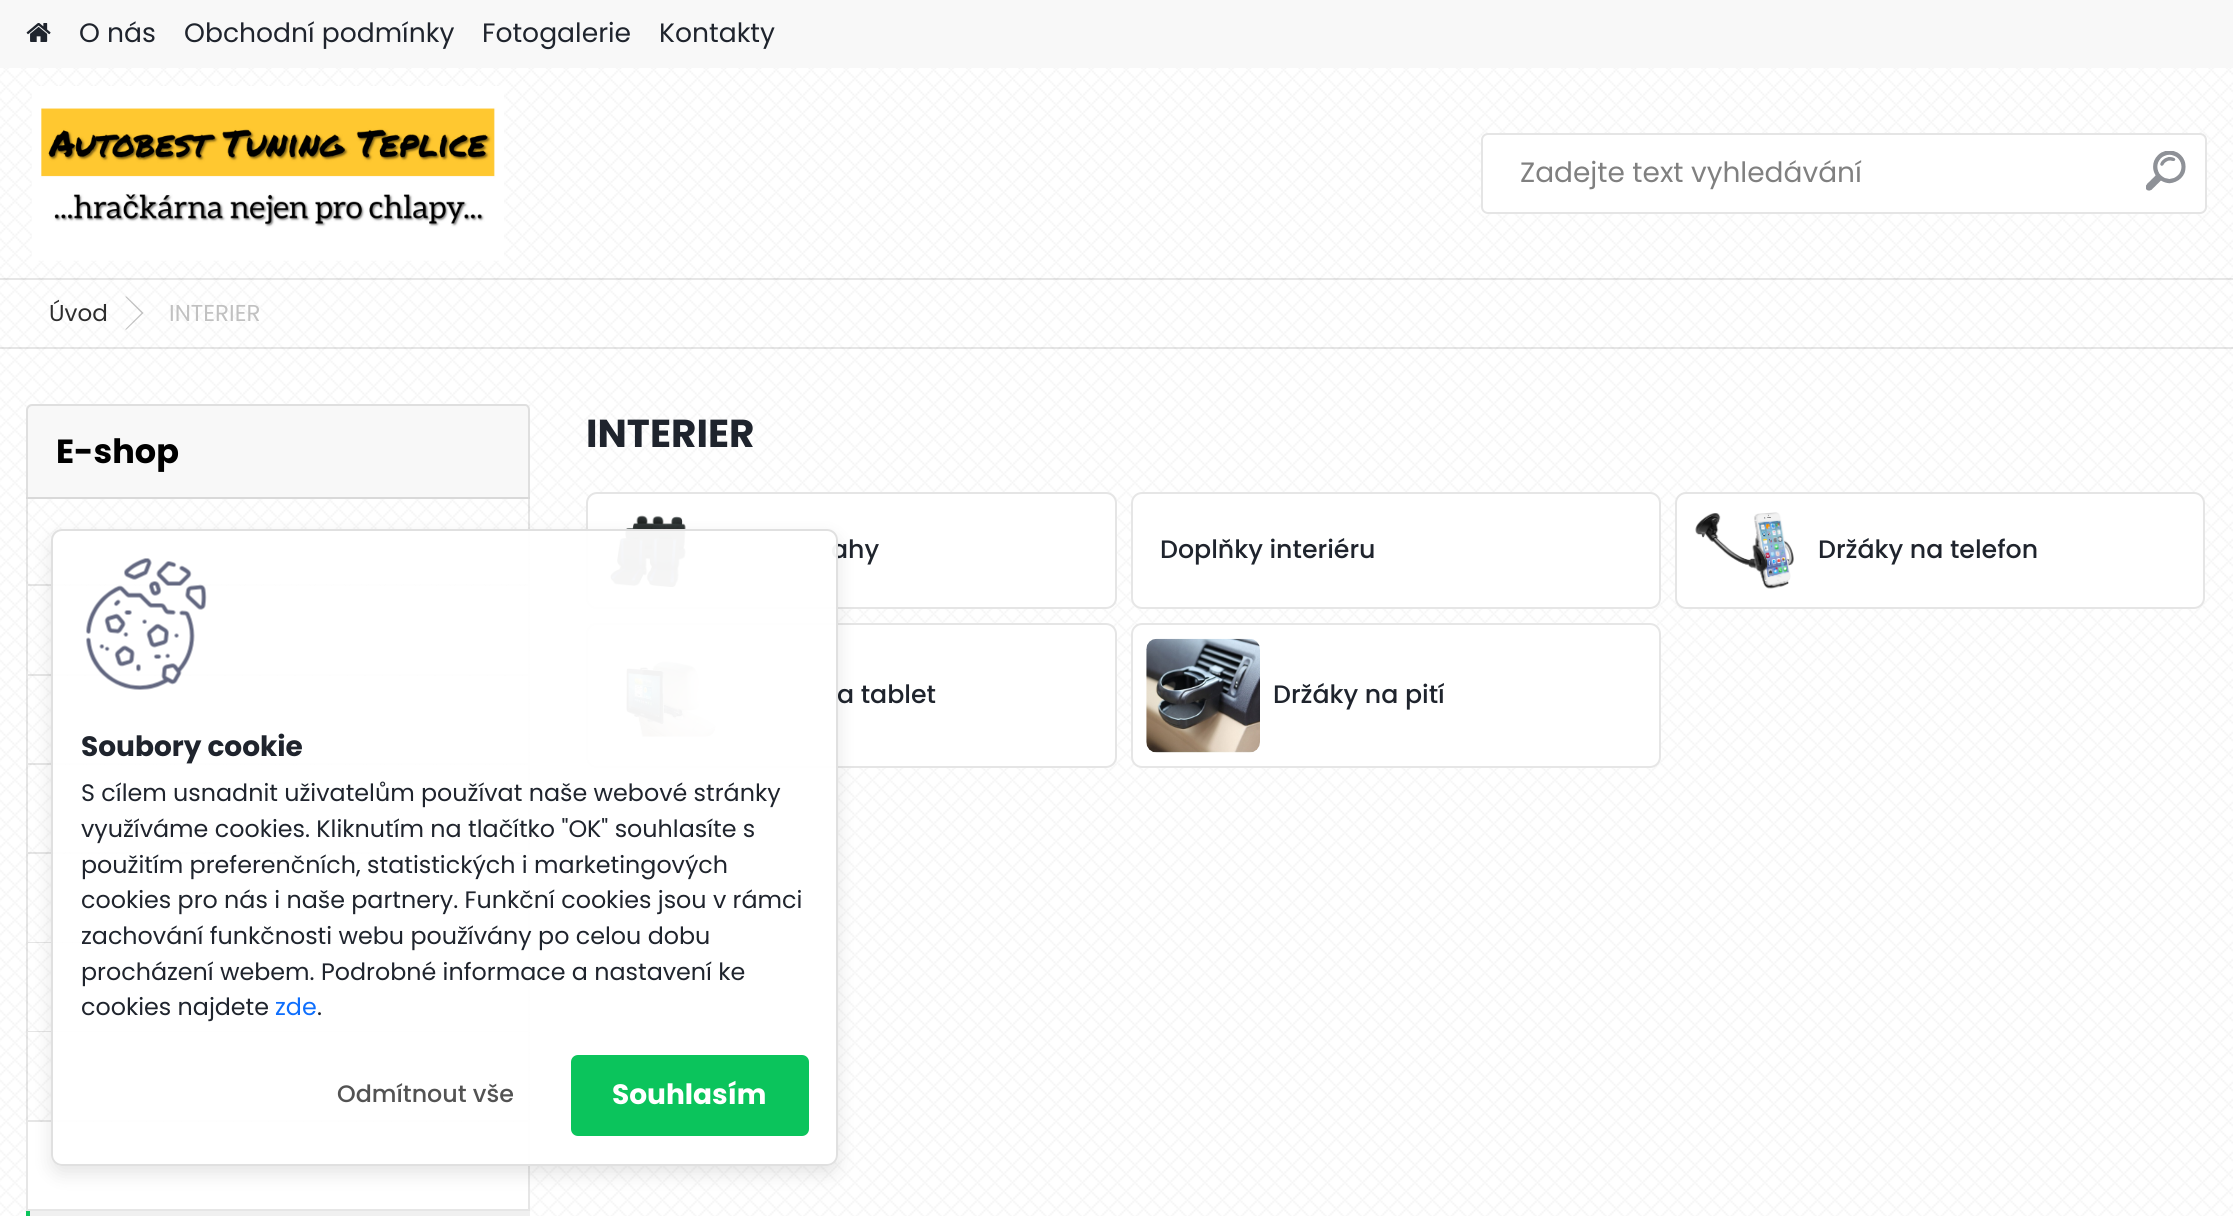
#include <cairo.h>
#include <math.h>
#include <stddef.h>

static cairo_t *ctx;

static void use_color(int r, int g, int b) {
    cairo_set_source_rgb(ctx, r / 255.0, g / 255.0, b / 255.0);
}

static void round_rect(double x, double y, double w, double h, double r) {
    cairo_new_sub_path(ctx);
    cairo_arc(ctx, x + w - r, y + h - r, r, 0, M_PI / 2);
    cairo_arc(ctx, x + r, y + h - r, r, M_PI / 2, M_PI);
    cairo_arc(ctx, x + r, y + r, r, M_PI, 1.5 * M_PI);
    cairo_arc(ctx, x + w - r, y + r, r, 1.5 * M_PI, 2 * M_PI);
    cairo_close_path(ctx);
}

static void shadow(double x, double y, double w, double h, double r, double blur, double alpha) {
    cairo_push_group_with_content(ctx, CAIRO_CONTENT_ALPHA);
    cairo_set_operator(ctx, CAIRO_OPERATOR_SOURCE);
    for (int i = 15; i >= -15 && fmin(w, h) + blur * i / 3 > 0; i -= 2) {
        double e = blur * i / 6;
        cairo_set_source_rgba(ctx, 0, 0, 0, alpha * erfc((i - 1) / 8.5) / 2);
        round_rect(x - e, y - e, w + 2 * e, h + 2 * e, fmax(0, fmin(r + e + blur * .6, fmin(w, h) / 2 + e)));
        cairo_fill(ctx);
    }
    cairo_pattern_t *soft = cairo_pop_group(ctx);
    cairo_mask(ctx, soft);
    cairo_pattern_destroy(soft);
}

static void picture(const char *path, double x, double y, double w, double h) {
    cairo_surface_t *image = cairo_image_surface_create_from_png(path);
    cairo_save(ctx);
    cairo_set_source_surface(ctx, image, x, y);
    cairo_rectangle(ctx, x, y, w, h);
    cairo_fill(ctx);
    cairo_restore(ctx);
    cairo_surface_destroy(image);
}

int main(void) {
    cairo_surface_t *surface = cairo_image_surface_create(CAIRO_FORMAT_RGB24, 2233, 1216);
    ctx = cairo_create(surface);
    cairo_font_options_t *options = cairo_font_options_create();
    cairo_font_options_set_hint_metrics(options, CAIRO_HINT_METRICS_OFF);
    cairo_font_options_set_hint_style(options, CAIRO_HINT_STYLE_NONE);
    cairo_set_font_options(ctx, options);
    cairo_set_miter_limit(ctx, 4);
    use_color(255, 255, 255);
    cairo_paint(ctx);
    picture("img1.png", 0, 68, 2233, 212);
    cairo_set_source_rgba(ctx, 0, 0, 0, 0.1);
    cairo_rectangle(ctx, 0, 278, 2233, 2);
    cairo_fill(ctx);
    use_color(248, 248, 248);
    cairo_rectangle(ctx, 0, 0, 2233, 68);
    cairo_fill(ctx);
    picture("img2.png", 26, 23, 25, 19);
    cairo_select_font_face(ctx, "Poppins", CAIRO_FONT_SLANT_NORMAL, CAIRO_FONT_WEIGHT_NORMAL);
    cairo_set_font_size(ctx, 26.6);
    use_color(31, 36, 45);
    cairo_move_to(ctx, 79, 42);
    cairo_show_text(ctx, "O nás");
    cairo_move_to(ctx, 184, 42);
    cairo_show_text(ctx, "Obchodní podmínky");
    cairo_move_to(ctx, 482, 42);
    cairo_show_text(ctx, "Fotogalerie");
    cairo_move_to(ctx, 659, 42);
    cairo_show_text(ctx, "Kontakty");
    picture("img3.png", 32, 86, 472, 175);
    use_color(255, 255, 255);
    round_rect(1482, 134, 724, 79, 6);
    cairo_fill_preserve(ctx);
    use_color(229, 229, 229);
    cairo_stroke(ctx);
    cairo_set_font_size(ctx, 28);
    use_color(128, 128, 128);
    cairo_move_to(ctx, 1520, 182);
    cairo_show_text(ctx, "Zadejte text vyhledávání");
    picture("img4.png", 2146, 151, 40, 40);
    picture("img5.png", 0, 280, 2233, 936);
    cairo_set_source_rgba(ctx, 0, 0, 0, 0.1);
    cairo_rectangle(ctx, 0, 347, 2233, 2);
    cairo_fill(ctx);
    cairo_set_font_size(ctx, 23);
    use_color(45, 45, 45);
    cairo_move_to(ctx, 49, 321);
    cairo_show_text(ctx, "Úvod");
    cairo_set_source_rgba(ctx, 0.216, 0.216, 0.216, 0.3);
    cairo_new_path(ctx);
    cairo_move_to(ctx, 125, 296.5);
    cairo_line_to(ctx, 126.5, 296.5);
    cairo_line_to(ctx, 143.5, 313);
    cairo_line_to(ctx, 141.5, 313);
    cairo_close_path(ctx);
    cairo_move_to(ctx, 141.5, 313);
    cairo_line_to(ctx, 143.5, 313);
    cairo_line_to(ctx, 126.5, 329.5);
    cairo_line_to(ctx, 125, 329.5);
    cairo_close_path(ctx);
    cairo_fill(ctx);
    use_color(193, 193, 193);
    cairo_move_to(ctx, 169, 321);
    cairo_show_text(ctx, "INTERIER");
    cairo_set_source_rgba(ctx, 0, 0, 0, 0.1);
    cairo_new_path(ctx);
    cairo_move_to(ctx, 530, 497);
    cairo_line_to(ctx, 530, 586);
    cairo_line_to(ctx, 528, 584);
    cairo_line_to(ctx, 528, 497);
    cairo_close_path(ctx);
    cairo_fill(ctx);
    cairo_new_path(ctx);
    cairo_move_to(ctx, 530, 586);
    cairo_line_to(ctx, 26, 586);
    cairo_line_to(ctx, 28, 584);
    cairo_line_to(ctx, 528, 584);
    cairo_close_path(ctx);
    cairo_fill(ctx);
    cairo_new_path(ctx);
    cairo_move_to(ctx, 26, 586);
    cairo_line_to(ctx, 26, 497);
    cairo_line_to(ctx, 28, 497);
    cairo_line_to(ctx, 28, 584);
    cairo_close_path(ctx);
    cairo_fill(ctx);
    use_color(217, 217, 217);
    cairo_new_path(ctx);
    cairo_move_to(ctx, 26, 409);
    cairo_line_to(ctx, 26, 499);
    cairo_line_to(ctx, 530, 499);
    cairo_line_to(ctx, 530, 497);
    cairo_line_to(ctx, 26, 497);
    cairo_close_path(ctx);
    cairo_fill(ctx);
    use_color(248, 248, 248);
    cairo_new_path(ctx);
    cairo_move_to(ctx, 31, 404);
    cairo_line_to(ctx, 525, 404);
    cairo_curve_to(ctx, 528, 404, 530, 406, 530, 409);
    cairo_line_to(ctx, 530, 497);
    cairo_line_to(ctx, 26, 497);
    cairo_line_to(ctx, 26, 409);
    cairo_curve_to(ctx, 26, 406, 28, 404, 31, 404);
    cairo_close_path(ctx);
    cairo_fill(ctx);
    use_color(223, 223, 223);
    cairo_set_fill_rule(ctx, CAIRO_FILL_RULE_EVEN_ODD);
    cairo_new_path(ctx);
    cairo_move_to(ctx, 32, 404);
    cairo_line_to(ctx, 525, 404);
    cairo_curve_to(ctx, 528, 404, 530, 407, 530, 410);
    cairo_line_to(ctx, 530, 497);
    cairo_line_to(ctx, 26, 497);
    cairo_line_to(ctx, 26, 410);
    cairo_curve_to(ctx, 26, 407, 29, 404, 32, 404);
    cairo_close_path(ctx);
    cairo_move_to(ctx, 32, 406);
    cairo_line_to(ctx, 525, 406);
    cairo_curve_to(ctx, 527, 406, 528, 408, 528, 410);
    cairo_line_to(ctx, 528, 497);
    cairo_line_to(ctx, 28, 497);
    cairo_line_to(ctx, 28, 410);
    cairo_curve_to(ctx, 28, 408, 30, 406, 32, 406);
    cairo_close_path(ctx);
    cairo_fill(ctx);
    cairo_select_font_face(ctx, "Poppins", CAIRO_FONT_SLANT_NORMAL, CAIRO_FONT_WEIGHT_BOLD);
    cairo_set_font_size(ctx, 33.5);
    use_color(0, 0, 0);
    cairo_move_to(ctx, 56, 463);
    cairo_show_text(ctx, "E-shop");
    cairo_set_source_rgba(ctx, 0, 0, 0, 0.1);
    cairo_set_fill_rule(ctx, CAIRO_FILL_RULE_WINDING);
    cairo_new_path(ctx);
    cairo_move_to(ctx, 530, 586);
    cairo_line_to(ctx, 530, 676);
    cairo_line_to(ctx, 528, 674);
    cairo_line_to(ctx, 528, 586);
    cairo_close_path(ctx);
    cairo_fill(ctx);
    cairo_new_path(ctx);
    cairo_move_to(ctx, 530, 676);
    cairo_line_to(ctx, 26, 676);
    cairo_line_to(ctx, 28, 674);
    cairo_line_to(ctx, 528, 674);
    cairo_close_path(ctx);
    cairo_fill(ctx);
    cairo_new_path(ctx);
    cairo_move_to(ctx, 26, 676);
    cairo_line_to(ctx, 26, 586);
    cairo_line_to(ctx, 28, 586);
    cairo_line_to(ctx, 28, 674);
    cairo_close_path(ctx);
    cairo_fill(ctx);
    cairo_new_path(ctx);
    cairo_move_to(ctx, 530, 676);
    cairo_line_to(ctx, 530, 765);
    cairo_line_to(ctx, 528, 763);
    cairo_line_to(ctx, 528, 676);
    cairo_close_path(ctx);
    cairo_fill(ctx);
    cairo_new_path(ctx);
    cairo_move_to(ctx, 530, 765);
    cairo_line_to(ctx, 26, 765);
    cairo_line_to(ctx, 28, 763);
    cairo_line_to(ctx, 528, 763);
    cairo_close_path(ctx);
    cairo_fill(ctx);
    cairo_new_path(ctx);
    cairo_move_to(ctx, 26, 765);
    cairo_line_to(ctx, 26, 676);
    cairo_line_to(ctx, 28, 676);
    cairo_line_to(ctx, 28, 763);
    cairo_close_path(ctx);
    cairo_fill(ctx);
    cairo_new_path(ctx);
    cairo_move_to(ctx, 530, 765);
    cairo_line_to(ctx, 530, 854);
    cairo_line_to(ctx, 528, 852);
    cairo_line_to(ctx, 528, 765);
    cairo_close_path(ctx);
    cairo_fill(ctx);
    cairo_new_path(ctx);
    cairo_move_to(ctx, 530, 854);
    cairo_line_to(ctx, 26, 854);
    cairo_line_to(ctx, 28, 852);
    cairo_line_to(ctx, 528, 852);
    cairo_close_path(ctx);
    cairo_fill(ctx);
    cairo_new_path(ctx);
    cairo_move_to(ctx, 26, 854);
    cairo_line_to(ctx, 26, 765);
    cairo_line_to(ctx, 28, 765);
    cairo_line_to(ctx, 28, 852);
    cairo_close_path(ctx);
    cairo_fill(ctx);
    cairo_new_path(ctx);
    cairo_move_to(ctx, 530, 854);
    cairo_line_to(ctx, 530, 943);
    cairo_line_to(ctx, 528, 942);
    cairo_line_to(ctx, 528, 854);
    cairo_close_path(ctx);
    cairo_fill(ctx);
    cairo_new_path(ctx);
    cairo_move_to(ctx, 530, 943);
    cairo_line_to(ctx, 26, 943);
    cairo_line_to(ctx, 28, 942);
    cairo_line_to(ctx, 528, 942);
    cairo_close_path(ctx);
    cairo_fill(ctx);
    cairo_new_path(ctx);
    cairo_move_to(ctx, 26, 943);
    cairo_line_to(ctx, 26, 854);
    cairo_line_to(ctx, 28, 854);
    cairo_line_to(ctx, 28, 942);
    cairo_close_path(ctx);
    cairo_fill(ctx);
    cairo_new_path(ctx);
    cairo_move_to(ctx, 530, 943);
    cairo_line_to(ctx, 530, 1032);
    cairo_line_to(ctx, 528, 1031);
    cairo_line_to(ctx, 528, 943);
    cairo_close_path(ctx);
    cairo_fill(ctx);
    cairo_new_path(ctx);
    cairo_move_to(ctx, 530, 1032);
    cairo_line_to(ctx, 26, 1032);
    cairo_line_to(ctx, 28, 1031);
    cairo_line_to(ctx, 528, 1031);
    cairo_close_path(ctx);
    cairo_fill(ctx);
    cairo_new_path(ctx);
    cairo_move_to(ctx, 26, 1032);
    cairo_line_to(ctx, 26, 943);
    cairo_line_to(ctx, 28, 943);
    cairo_line_to(ctx, 28, 1031);
    cairo_close_path(ctx);
    cairo_fill(ctx);
    cairo_new_path(ctx);
    cairo_move_to(ctx, 530, 1032);
    cairo_line_to(ctx, 530, 1122);
    cairo_line_to(ctx, 528, 1120);
    cairo_line_to(ctx, 528, 1032);
    cairo_close_path(ctx);
    cairo_fill(ctx);
    cairo_new_path(ctx);
    cairo_move_to(ctx, 530, 1122);
    cairo_line_to(ctx, 26, 1122);
    cairo_line_to(ctx, 28, 1120);
    cairo_line_to(ctx, 528, 1120);
    cairo_close_path(ctx);
    cairo_fill(ctx);
    cairo_new_path(ctx);
    cairo_move_to(ctx, 26, 1122);
    cairo_line_to(ctx, 26, 1032);
    cairo_line_to(ctx, 28, 1032);
    cairo_line_to(ctx, 28, 1120);
    cairo_close_path(ctx);
    cairo_fill(ctx);
    use_color(255, 255, 255);
    cairo_rectangle(ctx, 26, 1122, 504, 89);
    cairo_fill(ctx);
    use_color(230, 230, 230);
    cairo_new_path(ctx);
    cairo_move_to(ctx, 530, 1122);
    cairo_line_to(ctx, 530, 1211);
    cairo_line_to(ctx, 528, 1209);
    cairo_line_to(ctx, 528, 1122);
    cairo_close_path(ctx);
    cairo_fill(ctx);
    cairo_set_source_rgba(ctx, 0, 0, 0, 0.1);
    cairo_new_path(ctx);
    cairo_move_to(ctx, 530, 1211);
    cairo_line_to(ctx, 26, 1211);
    cairo_line_to(ctx, 28, 1209);
    cairo_line_to(ctx, 528, 1209);
    cairo_close_path(ctx);
    cairo_fill(ctx);
    cairo_new_path(ctx);
    cairo_move_to(ctx, 26, 1211);
    cairo_line_to(ctx, 26, 1122);
    cairo_line_to(ctx, 28, 1122);
    cairo_line_to(ctx, 28, 1209);
    cairo_close_path(ctx);
    cairo_fill(ctx);
    use_color(240, 240, 240);
    cairo_rectangle(ctx, 26, 1211, 504, 5);
    cairo_fill(ctx);
    use_color(11, 196, 92);
    cairo_new_path(ctx);
    cairo_move_to(ctx, 26, 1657);
    cairo_line_to(ctx, 26, 1211);
    cairo_line_to(ctx, 30, 1211);
    cairo_line_to(ctx, 30, 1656);
    cairo_close_path(ctx);
    cairo_fill(ctx);
    cairo_set_font_size(ctx, 39);
    use_color(31, 36, 45);
    cairo_move_to(ctx, 586, 447);
    cairo_show_text(ctx, "INTERIER");
    use_color(255, 255, 255);
    round_rect(587, 493, 529, 115, 10);
    cairo_fill_preserve(ctx);
    use_color(229, 229, 229);
    cairo_stroke(ctx);
    picture("img6.png", 610, 515, 76, 73);
    cairo_select_font_face(ctx, "Poppins Medium", CAIRO_FONT_SLANT_NORMAL, CAIRO_FONT_WEIGHT_NORMAL);
    cairo_set_font_size(ctx, 25.25);
    use_color(31, 36, 45);
    cairo_move_to(ctx, 831, 558);
    cairo_show_text(ctx, "ahy");
    use_color(255, 255, 255);
    round_rect(1131, 492, 530, 117, 11);
    cairo_fill(ctx);
    round_rect(1132, 493, 528, 115, 10);
    cairo_set_source_rgba(ctx, 0, 0, 0, 0.1);
    cairo_stroke(ctx);
    use_color(31, 36, 45);
    cairo_move_to(ctx, 1160, 558);
    cairo_show_text(ctx, "Doplňky interiéru");
    use_color(255, 255, 255);
    round_rect(1676, 493, 528, 115, 10);
    cairo_fill_preserve(ctx);
    use_color(229, 229, 229);
    cairo_stroke(ctx);
    picture("img7.png", 1695, 512, 99, 77);
    use_color(31, 36, 45);
    cairo_move_to(ctx, 1818, 558);
    cairo_show_text(ctx, "Držáky na telefon");
    use_color(255, 255, 255);
    round_rect(587, 624, 529, 143, 10);
    cairo_fill_preserve(ctx);
    use_color(229, 229, 229);
    cairo_stroke(ctx);
    picture("img8.png", 623, 661, 93, 76);
    use_color(31, 36, 45);
    cairo_move_to(ctx, 837, 703);
    cairo_show_text(ctx, "a tablet");
    use_color(255, 255, 255);
    round_rect(1131, 623, 530, 145, 11);
    cairo_fill(ctx);
    round_rect(1132, 624, 528, 143, 10);
    cairo_set_source_rgba(ctx, 0, 0, 0, 0.1);
    cairo_stroke(ctx);
    picture("img9.png", 1146, 638, 114, 115);
    use_color(31, 36, 45);
    cairo_move_to(ctx, 1273, 703);
    cairo_show_text(ctx, "Držáky na pití");
    cairo_save(ctx);
    cairo_set_fill_rule(ctx, CAIRO_FILL_RULE_EVEN_ODD);
    cairo_new_path(ctx);
    cairo_move_to(ctx, 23, 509);
    cairo_line_to(ctx, 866, 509);
    cairo_line_to(ctx, 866, 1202);
    cairo_line_to(ctx, 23, 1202);
    cairo_close_path(ctx);
    cairo_move_to(ctx, 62, 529);
    cairo_line_to(ctx, 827, 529);
    cairo_curve_to(ctx, 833, 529, 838, 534, 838, 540);
    cairo_line_to(ctx, 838, 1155);
    cairo_curve_to(ctx, 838, 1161, 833, 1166, 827, 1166);
    cairo_line_to(ctx, 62, 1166);
    cairo_curve_to(ctx, 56, 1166, 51, 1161, 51, 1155);
    cairo_line_to(ctx, 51, 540);
    cairo_curve_to(ctx, 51, 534, 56, 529, 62, 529);
    cairo_close_path(ctx);
    cairo_clip(ctx);
    use_color(0, 0, 0);
    shadow(51, 537, 787, 637, 11, 9, 0.1);
    cairo_restore(ctx);
    cairo_set_source_rgba(ctx, 1, 1, 1, 0.95);
    round_rect(52, 530, 785, 635, 10);
    cairo_fill_preserve(ctx);
    use_color(224, 224, 224);
    cairo_stroke(ctx);
    picture("img10.png", 86, 558, 121, 132);
    cairo_select_font_face(ctx, "Poppins", CAIRO_FONT_SLANT_NORMAL, CAIRO_FONT_WEIGHT_BOLD);
    cairo_set_font_size(ctx, 28);
    use_color(31, 36, 45);
    cairo_move_to(ctx, 81, 756);
    cairo_show_text(ctx, "Soubory cookie");
    cairo_select_font_face(ctx, "Poppins", CAIRO_FONT_SLANT_NORMAL, CAIRO_FONT_WEIGHT_NORMAL);
    cairo_set_font_size(ctx, 23.8);
    cairo_move_to(ctx, 81, 801);
    cairo_show_text(ctx, "S cílem usnadnit uživatelům používat naše webové stránky");
    cairo_move_to(ctx, 81, 837);
    cairo_show_text(ctx, "využíváme cookies. Kliknutím na tlačítko \"OK\" souhlasíte s");
    cairo_move_to(ctx, 81, 873);
    cairo_show_text(ctx, "použitím preferenčních, statistických i marketingových");
    cairo_move_to(ctx, 81, 908);
    cairo_show_text(ctx, "cookies pro nás i naše partnery. Funkční cookies jsou v rámci");
    cairo_move_to(ctx, 81, 944);
    cairo_show_text(ctx, "zachování funkčnosti webu používány po celou dobu");
    cairo_move_to(ctx, 81, 980);
    cairo_show_text(ctx, "procházení webem. Podrobné informace a nastavení ke");
    cairo_move_to(ctx, 81, 1015);
    cairo_show_text(ctx, "cookies najdete");
    use_color(13, 110, 253);
    cairo_move_to(ctx, 275, 1015);
    cairo_show_text(ctx, "zde");
    use_color(31, 36, 45);
    cairo_move_to(ctx, 317, 1015);
    cairo_show_text(ctx, ".");
    cairo_select_font_face(ctx, "Poppins Medium", CAIRO_FONT_SLANT_NORMAL, CAIRO_FONT_WEIGHT_NORMAL);
    use_color(83, 83, 83);
    cairo_move_to(ctx, 337, 1102);
    cairo_show_text(ctx, "Odmítnout vše");
    use_color(11, 196, 92);
    round_rect(571, 1055, 238, 81, 7);
    cairo_fill(ctx);
    cairo_select_font_face(ctx, "Poppins", CAIRO_FONT_SLANT_NORMAL, CAIRO_FONT_WEIGHT_BOLD);
    cairo_set_font_size(ctx, 28);
    use_color(255, 255, 255);
    cairo_move_to(ctx, 612, 1104);
    cairo_show_text(ctx, "Souhlasím");
    cairo_surface_write_to_png(surface, "result.png");
    cairo_font_options_destroy(options);
    cairo_destroy(ctx);
    cairo_surface_destroy(surface);
    return 0;
}
